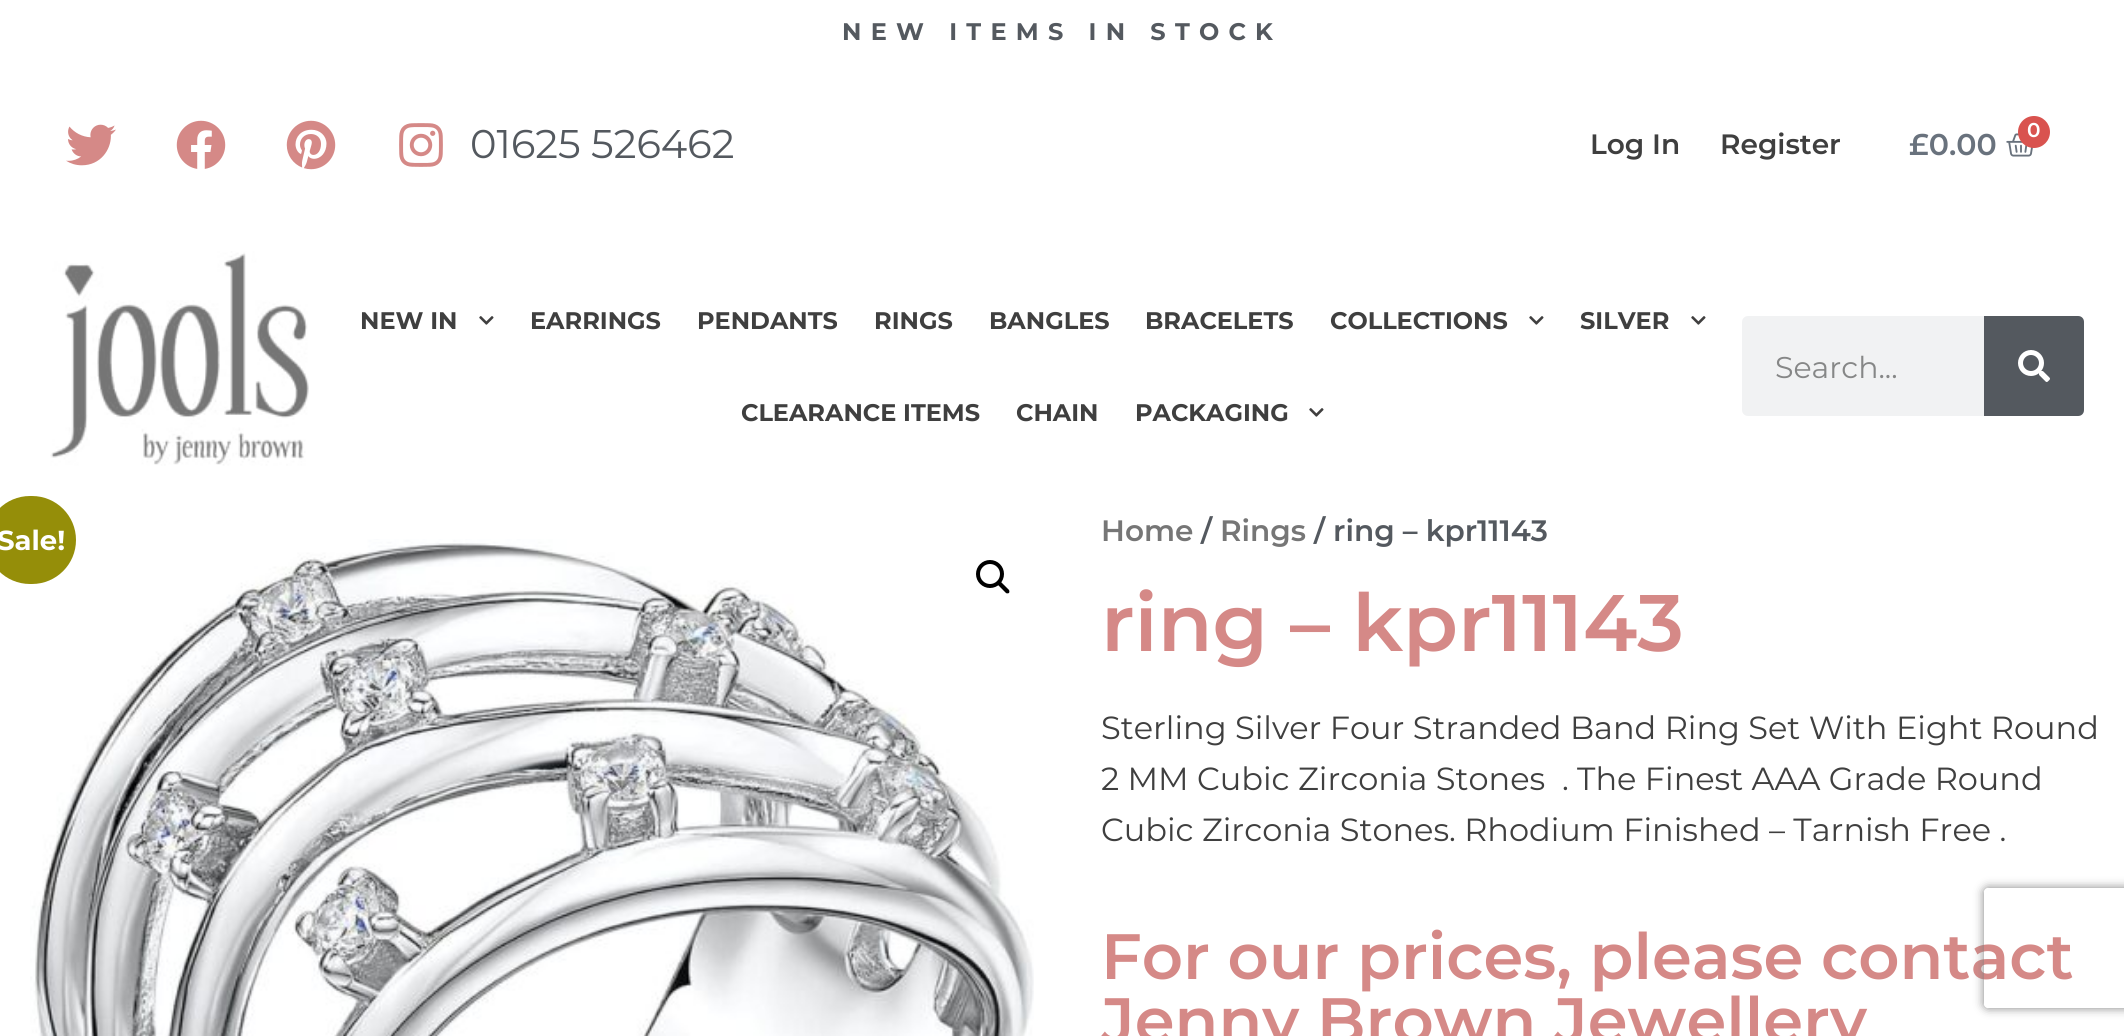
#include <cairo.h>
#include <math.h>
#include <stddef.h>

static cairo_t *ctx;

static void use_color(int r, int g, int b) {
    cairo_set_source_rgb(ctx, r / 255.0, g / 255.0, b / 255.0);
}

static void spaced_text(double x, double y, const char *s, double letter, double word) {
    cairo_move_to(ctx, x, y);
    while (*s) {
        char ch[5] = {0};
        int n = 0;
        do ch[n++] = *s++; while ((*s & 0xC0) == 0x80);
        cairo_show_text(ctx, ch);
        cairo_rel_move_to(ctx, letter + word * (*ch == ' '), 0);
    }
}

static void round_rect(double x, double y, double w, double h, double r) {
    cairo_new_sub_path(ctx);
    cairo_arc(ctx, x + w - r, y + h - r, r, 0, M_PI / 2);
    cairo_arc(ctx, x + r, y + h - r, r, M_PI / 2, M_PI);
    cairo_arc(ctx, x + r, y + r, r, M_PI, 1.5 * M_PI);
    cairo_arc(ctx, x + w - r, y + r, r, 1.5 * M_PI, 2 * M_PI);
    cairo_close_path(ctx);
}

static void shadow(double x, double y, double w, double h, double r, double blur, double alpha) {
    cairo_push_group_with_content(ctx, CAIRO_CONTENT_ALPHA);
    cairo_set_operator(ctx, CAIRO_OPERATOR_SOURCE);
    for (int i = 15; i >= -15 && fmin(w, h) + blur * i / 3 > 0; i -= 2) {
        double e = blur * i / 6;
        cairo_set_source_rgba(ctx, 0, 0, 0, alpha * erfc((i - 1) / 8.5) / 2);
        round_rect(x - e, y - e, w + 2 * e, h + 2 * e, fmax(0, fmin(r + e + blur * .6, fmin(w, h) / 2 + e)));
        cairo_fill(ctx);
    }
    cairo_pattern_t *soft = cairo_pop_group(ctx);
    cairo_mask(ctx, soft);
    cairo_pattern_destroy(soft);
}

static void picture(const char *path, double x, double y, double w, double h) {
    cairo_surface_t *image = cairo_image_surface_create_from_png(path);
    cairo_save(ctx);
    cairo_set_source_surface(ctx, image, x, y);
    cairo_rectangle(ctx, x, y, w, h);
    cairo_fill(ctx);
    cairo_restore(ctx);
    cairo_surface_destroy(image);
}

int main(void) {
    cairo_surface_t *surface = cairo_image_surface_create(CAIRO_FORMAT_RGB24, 2124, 1036);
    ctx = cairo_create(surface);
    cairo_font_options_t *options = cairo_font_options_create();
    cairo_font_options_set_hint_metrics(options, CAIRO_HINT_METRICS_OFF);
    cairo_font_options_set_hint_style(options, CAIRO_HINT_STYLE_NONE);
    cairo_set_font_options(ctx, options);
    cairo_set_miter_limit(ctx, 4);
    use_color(255, 255, 255);
    cairo_paint(ctx);
    cairo_select_font_face(ctx, "Montserrat", CAIRO_FONT_SLANT_NORMAL, CAIRO_FONT_WEIGHT_BOLD);
    cairo_set_font_size(ctx, 24);
    use_color(84, 89, 95);
    spaced_text(842, 40, "NEW ITEMS IN STOCK", 9.25, 0);
    picture("img1.png", 66, 124, 50, 42);
    picture("img2.png", 176, 120, 50, 49);
    picture("img3.png", 286, 120, 50, 50);
    picture("img4.png", 399, 123, 44, 44);
    cairo_select_font_face(ctx, "Montserrat", CAIRO_FONT_SLANT_NORMAL, CAIRO_FONT_WEIGHT_NORMAL);
    cairo_set_font_size(ctx, 40);
    cairo_move_to(ctx, 470, 158);
    cairo_show_text(ctx, "01625 526462");
    cairo_select_font_face(ctx, "Montserrat SemiBold", CAIRO_FONT_SLANT_NORMAL, CAIRO_FONT_WEIGHT_NORMAL);
    cairo_set_font_size(ctx, 28);
    use_color(63, 63, 63);
    cairo_move_to(ctx, 1590, 154);
    cairo_show_text(ctx, "Log In");
    cairo_move_to(ctx, 1720, 154);
    cairo_show_text(ctx, "Register");
    picture("img5.png", 2006, 133, 27, 24);
    use_color(217, 83, 79);
    cairo_arc(ctx, 2034, 132, 16, 0, 2 * M_PI);
    cairo_fill(ctx);
    cairo_set_font_size(ctx, 20);
    use_color(255, 255, 255);
    cairo_move_to(ctx, 2027, 137);
    cairo_show_text(ctx, "0");
    cairo_set_font_size(ctx, 30);
    use_color(105, 114, 125);
    cairo_move_to(ctx, 1909, 155);
    cairo_show_text(ctx, "£0.00");
    picture("img6.png", 50, 251, 259, 215);
    cairo_select_font_face(ctx, "Montserrat", CAIRO_FONT_SLANT_NORMAL, CAIRO_FONT_WEIGHT_BOLD);
    cairo_set_font_size(ctx, 24);
    use_color(63, 63, 63);
    cairo_move_to(ctx, 360, 329);
    cairo_show_text(ctx, "NEW IN");
    picture("img7.png", 479, 316, 15, 9);
    cairo_move_to(ctx, 530, 329);
    cairo_show_text(ctx, "EARRINGS");
    cairo_move_to(ctx, 697, 329);
    cairo_show_text(ctx, "PENDANTS");
    cairo_move_to(ctx, 874, 329);
    cairo_show_text(ctx, "RINGS");
    cairo_move_to(ctx, 989, 329);
    cairo_show_text(ctx, "BANGLES");
    cairo_move_to(ctx, 1145, 329);
    cairo_show_text(ctx, "BRACELETS");
    cairo_move_to(ctx, 1330, 329);
    cairo_show_text(ctx, "COLLECTIONS");
    picture("img7.png", 1529, 316, 15, 9);
    cairo_move_to(ctx, 1580, 329);
    cairo_show_text(ctx, "SILVER");
    picture("img7.png", 1691, 316, 15, 9);
    cairo_move_to(ctx, 741, 421);
    cairo_show_text(ctx, "CLEARANCE ITEMS");
    cairo_move_to(ctx, 1016, 421);
    cairo_show_text(ctx, "CHAIN");
    cairo_move_to(ctx, 1135, 421);
    cairo_show_text(ctx, "PACKAGING");
    picture("img7.png", 1309, 408, 15, 9);
    use_color(241, 242, 243);
    round_rect(1742, 316, 342, 100, 6);
    cairo_fill(ctx);
    cairo_select_font_face(ctx, "Montserrat", CAIRO_FONT_SLANT_NORMAL, CAIRO_FONT_WEIGHT_NORMAL);
    cairo_set_font_size(ctx, 30);
    use_color(134, 135, 135);
    cairo_move_to(ctx, 1775, 378);
    cairo_show_text(ctx, "Search...");
    use_color(84, 89, 95);
    cairo_new_path(ctx);
    cairo_move_to(ctx, 1984, 316);
    cairo_line_to(ctx, 2078, 316);
    cairo_curve_to(ctx, 2081.5, 316, 2084, 318.5, 2084, 322);
    cairo_line_to(ctx, 2084, 410);
    cairo_curve_to(ctx, 2084, 413.5, 2081.5, 416, 2078, 416);
    cairo_line_to(ctx, 1984, 416);
    cairo_close_path(ctx);
    cairo_fill(ctx);
    picture("img8.png", 2018, 350, 32, 32);
    picture("img9.png", 30, 539, 1004, 497);
    use_color(149, 142, 9);
    round_rect(-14, 496, 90, 88, 44);
    cairo_fill(ctx);
    cairo_select_font_face(ctx, "Montserrat", CAIRO_FONT_SLANT_NORMAL, CAIRO_FONT_WEIGHT_BOLD);
    cairo_set_font_size(ctx, 27.5);
    use_color(255, 255, 255);
    cairo_move_to(ctx, -3, 550);
    cairo_show_text(ctx, "Sale!");
    cairo_new_path(ctx);
    cairo_arc(ctx, 990, 574, 12, 0, 2 * M_PI);
    use_color(0, 0, 0);
    cairo_set_line_width(ctx, 4);
    cairo_stroke(ctx);
    cairo_new_path(ctx);
    cairo_move_to(ctx, 997.5, 581.5);
    cairo_curve_to(ctx, 998, 581, 999.5, 581, 1000.5, 581.5);
    cairo_line_to(ctx, 1009, 590);
    cairo_curve_to(ctx, 1009.5, 591, 1009.5, 592, 1009, 593);
    cairo_curve_to(ctx, 1008, 593.5, 1006.5, 593.5, 1006, 593);
    cairo_line_to(ctx, 997.5, 584.5);
    cairo_curve_to(ctx, 996.5, 583.5, 996.5, 582.5, 997.5, 581.5);
    cairo_close_path(ctx);
    cairo_fill(ctx);
    cairo_select_font_face(ctx, "Montserrat SemiBold", CAIRO_FONT_SLANT_NORMAL, CAIRO_FONT_WEIGHT_NORMAL);
    cairo_set_font_size(ctx, 29.5);
    use_color(118, 118, 118);
    cairo_move_to(ctx, 1101, 541);
    cairo_show_text(ctx, "Home");
    use_color(84, 89, 95);
    cairo_move_to(ctx, 1201, 541);
    cairo_show_text(ctx, "/");
    use_color(118, 118, 118);
    cairo_move_to(ctx, 1220, 541);
    cairo_show_text(ctx, "Rings");
    use_color(84, 89, 95);
    cairo_move_to(ctx, 1314, 541);
    cairo_show_text(ctx, "/ ring – kpr11143");
    cairo_set_font_size(ctx, 80);
    use_color(213, 137, 135);
    cairo_move_to(ctx, 1101, 651);
    cairo_show_text(ctx, "ring – kpr11143");
    cairo_select_font_face(ctx, "Montserrat", CAIRO_FONT_SLANT_NORMAL, CAIRO_FONT_WEIGHT_NORMAL);
    cairo_set_font_size(ctx, 32);
    use_color(63, 63, 63);
    cairo_move_to(ctx, 1101, 739);
    cairo_show_text(ctx, "Sterling Silver Four Stranded Band Ring Set With Eight Round");
    cairo_move_to(ctx, 1101, 790);
    cairo_show_text(ctx, "2 MM Cubic Zirconia Stones  . The Finest AAA Grade Round");
    cairo_move_to(ctx, 1101, 841);
    cairo_show_text(ctx, "Cubic Zirconia Stones. Rhodium Finished – Tarnish Free .");
    cairo_select_font_face(ctx, "Montserrat SemiBold", CAIRO_FONT_SLANT_NORMAL, CAIRO_FONT_WEIGHT_NORMAL);
    cairo_set_font_size(ctx, 64);
    use_color(213, 137, 135);
    cairo_move_to(ctx, 1101, 979);
    cairo_show_text(ctx, "For our prices, please contact");
    cairo_move_to(ctx, 1101, 1043);
    cairo_show_text(ctx, "Jenny Brown Jewellery");
    cairo_save(ctx);
    cairo_set_fill_rule(ctx, CAIRO_FILL_RULE_EVEN_ODD);
    cairo_new_path(ctx);
    cairo_move_to(ctx, 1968, 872);
    cairo_line_to(ctx, 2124, 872);
    cairo_line_to(ctx, 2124, 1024);
    cairo_line_to(ctx, 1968, 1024);
    cairo_close_path(ctx);
    cairo_move_to(ctx, 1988, 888);
    cairo_line_to(ctx, 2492, 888);
    cairo_curve_to(ctx, 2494, 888, 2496, 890, 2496, 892);
    cairo_line_to(ctx, 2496, 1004);
    cairo_curve_to(ctx, 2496, 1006, 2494, 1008, 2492, 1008);
    cairo_line_to(ctx, 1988, 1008);
    cairo_curve_to(ctx, 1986, 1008, 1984, 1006, 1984, 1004);
    cairo_line_to(ctx, 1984, 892);
    cairo_curve_to(ctx, 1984, 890, 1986, 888, 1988, 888);
    cairo_close_path(ctx);
    cairo_clip(ctx);
    use_color(128, 128, 128);
    shadow(1984, 888, 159, 120, 4, 5, 1);
    cairo_restore(ctx);
    cairo_surface_write_to_png(surface, "result.png");
    cairo_font_options_destroy(options);
    cairo_destroy(ctx);
    cairo_surface_destroy(surface);
    return 0;
}
